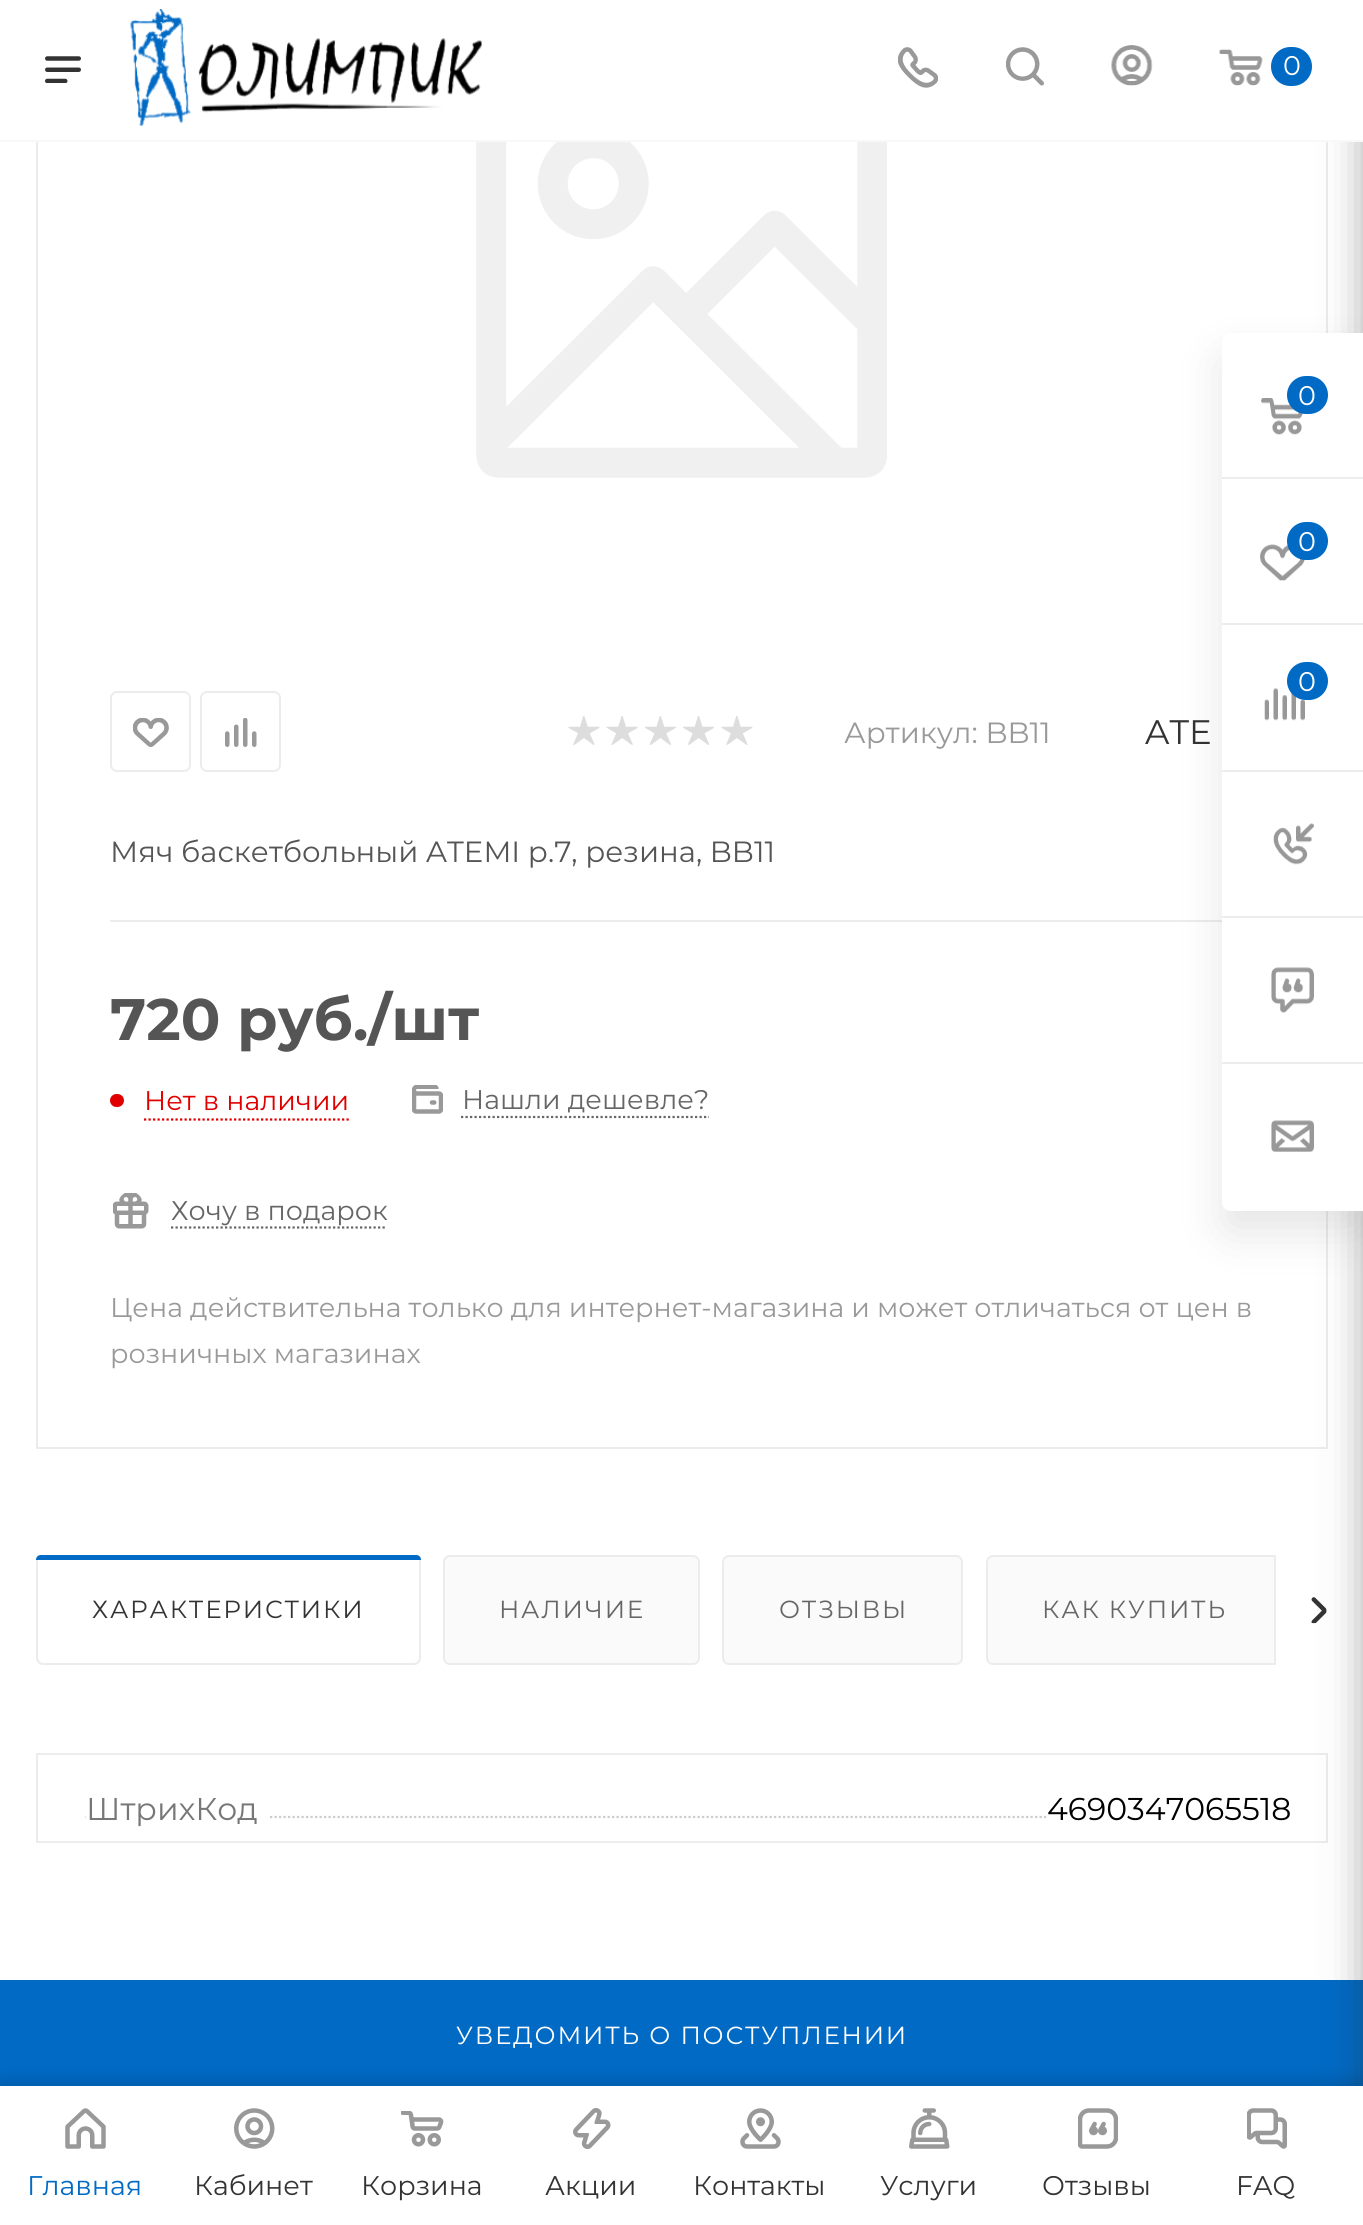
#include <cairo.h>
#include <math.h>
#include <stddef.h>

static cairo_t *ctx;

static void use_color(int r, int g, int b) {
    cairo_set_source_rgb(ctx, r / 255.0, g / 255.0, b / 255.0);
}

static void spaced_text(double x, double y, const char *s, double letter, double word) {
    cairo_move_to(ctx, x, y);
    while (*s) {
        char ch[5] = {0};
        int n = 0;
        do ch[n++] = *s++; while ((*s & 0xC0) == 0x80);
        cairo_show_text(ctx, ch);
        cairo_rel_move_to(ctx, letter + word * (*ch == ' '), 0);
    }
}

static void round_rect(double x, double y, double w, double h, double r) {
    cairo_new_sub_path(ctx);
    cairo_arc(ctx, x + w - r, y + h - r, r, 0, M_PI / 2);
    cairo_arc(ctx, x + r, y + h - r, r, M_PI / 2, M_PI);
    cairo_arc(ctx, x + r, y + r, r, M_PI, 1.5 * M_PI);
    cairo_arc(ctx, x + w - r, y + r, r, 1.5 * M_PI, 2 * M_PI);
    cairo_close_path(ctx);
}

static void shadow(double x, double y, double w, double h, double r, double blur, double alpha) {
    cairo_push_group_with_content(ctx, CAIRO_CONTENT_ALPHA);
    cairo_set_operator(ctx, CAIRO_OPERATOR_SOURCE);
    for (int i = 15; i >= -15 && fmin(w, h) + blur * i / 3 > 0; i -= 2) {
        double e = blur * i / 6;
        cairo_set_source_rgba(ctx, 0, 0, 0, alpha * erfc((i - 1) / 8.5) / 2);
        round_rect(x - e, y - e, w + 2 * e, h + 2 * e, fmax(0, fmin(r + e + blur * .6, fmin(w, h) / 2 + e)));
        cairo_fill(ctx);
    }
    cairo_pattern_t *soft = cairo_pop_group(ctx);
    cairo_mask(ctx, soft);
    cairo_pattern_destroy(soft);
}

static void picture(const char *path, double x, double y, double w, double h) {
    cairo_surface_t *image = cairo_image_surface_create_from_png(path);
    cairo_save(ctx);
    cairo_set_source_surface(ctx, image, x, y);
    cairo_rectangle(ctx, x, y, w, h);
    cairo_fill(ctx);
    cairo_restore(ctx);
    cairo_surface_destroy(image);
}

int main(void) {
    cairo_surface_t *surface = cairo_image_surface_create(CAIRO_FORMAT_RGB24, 1363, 2225);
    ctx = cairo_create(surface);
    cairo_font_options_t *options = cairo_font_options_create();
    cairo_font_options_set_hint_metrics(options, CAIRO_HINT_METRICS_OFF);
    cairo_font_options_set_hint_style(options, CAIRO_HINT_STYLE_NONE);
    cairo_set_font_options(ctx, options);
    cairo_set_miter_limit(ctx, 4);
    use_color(255, 255, 255);
    cairo_paint(ctx);
    cairo_rectangle(ctx, 37, -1, 1290, 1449);
    use_color(236, 236, 236);
    cairo_stroke(ctx);
    use_color(0, 106, 197);
    cairo_rectangle(ctx, 0, 1980, 1363, 106);
    cairo_fill(ctx);
    picture("img16.png", 1311, 1597, 16, 27);
    cairo_rectangle(ctx, 37, 1754, 1290, 88);
    use_color(236, 236, 236);
    cairo_stroke(ctx);
    use_color(44, 44, 44);
    shadow(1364, 14, 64, 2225, 5, 20, 0.4);
    use_color(255, 255, 255);
    cairo_rectangle(ctx, 36, 0, 1327, 140);
    cairo_fill(ctx);
    use_color(248, 248, 248);
    cairo_rectangle(ctx, 0, 140, 1363, 2);
    cairo_fill(ctx);
    picture("img1.png", 45, 56, 36, 27);
    picture("img2.png", 130, 9, 352, 117);
    picture("img3.png", 898, 47, 40, 41);
    picture("img4.png", 1006, 47, 38, 39);
    picture("img5.png", 1111, 45, 42, 41);
    picture("img6.png", 1219, 49, 44, 37);
    use_color(0, 106, 197);
    round_rect(1271, 47, 41, 39, 19.5);
    cairo_fill(ctx);
    cairo_select_font_face(ctx, "Montserrat", CAIRO_FONT_SLANT_NORMAL, CAIRO_FONT_WEIGHT_NORMAL);
    cairo_set_font_size(ctx, 27);
    use_color(255, 255, 255);
    cairo_move_to(ctx, 1283, 75);
    cairo_show_text(ctx, "0");
    picture("img7.png", 476, 142, 411, 336);
    round_rect(111, 692, 79, 79, 6);
    use_color(236, 236, 236);
    cairo_stroke(ctx);
    picture("img8.png", 133, 718, 36, 29);
    round_rect(201, 692, 79, 79, 6);
    cairo_stroke(ctx);
    picture("img9.png", 225, 718, 32, 29);
    picture("img10.png", 568, 716, 32, 29);
    picture("img11.png", 606, 716, 32, 29);
    picture("img12.png", 645, 716, 31, 29);
    picture("img13.png", 683, 716, 31, 29);
    picture("img10.png", 721, 716, 32, 29);
    cairo_set_font_size(ctx, 29.25);
    use_color(153, 153, 153);
    cairo_move_to(ctx, 844, 743);
    cairo_show_text(ctx, "Артикул: BB11");
    cairo_set_font_size(ctx, 34);
    use_color(51, 51, 51);
    cairo_move_to(ctx, 1145, 744);
    cairo_show_text(ctx, "ATE");
    use_color(236, 236, 236);
    cairo_rectangle(ctx, 110, 920, 1112, 2);
    cairo_fill(ctx);
    cairo_set_font_size(ctx, 29.25);
    use_color(85, 85, 85);
    cairo_move_to(ctx, 110, 862);
    cairo_show_text(ctx, "Мяч баскетбольный ATEMI р.7, резина, BB11");
    cairo_select_font_face(ctx, "Montserrat", CAIRO_FONT_SLANT_NORMAL, CAIRO_FONT_WEIGHT_BOLD);
    cairo_set_font_size(ctx, 58.5);
    cairo_move_to(ctx, 110, 1040);
    cairo_show_text(ctx, "720 руб./шт");
    use_color(225, 0, 0);
    round_rect(110, 1094, 14, 13, 6.5);
    cairo_fill(ctx);
    cairo_select_font_face(ctx, "Montserrat", CAIRO_FONT_SLANT_NORMAL, CAIRO_FONT_WEIGHT_NORMAL);
    cairo_set_font_size(ctx, 27);
    cairo_move_to(ctx, 144, 1110);
    cairo_show_text(ctx, "Нет в наличии");
    cairo_new_path(ctx);
    cairo_move_to(ctx, 144, 1119.5);
    cairo_line_to(ctx, 349, 1119.5);
    cairo_set_line_width(ctx, 2.2);
    cairo_set_dash(ctx, (double[]){2.25, 2.25}, 2, 0);
    cairo_stroke(ctx);
    picture("img14.png", 412, 1085, 31, 29);
    use_color(102, 102, 102);
    cairo_move_to(ctx, 462, 1109);
    cairo_show_text(ctx, "Нашли дешевле?");
    cairo_new_path(ctx);
    cairo_move_to(ctx, 461, 1117);
    cairo_line_to(ctx, 709, 1117);
    cairo_stroke(ctx);
    cairo_set_font_size(ctx, 24.75);
    use_color(255, 255, 255);
    spaced_text(456, 2044, "УВЕДОМИТЬ О ПОСТУПЛЕНИИ", 1.8, 0);
    picture("img15.png", 113, 1193, 36, 36);
    cairo_set_font_size(ctx, 27);
    use_color(102, 102, 102);
    cairo_move_to(ctx, 171, 1220);
    cairo_show_text(ctx, "Хочу в подарок");
    cairo_new_path(ctx);
    cairo_move_to(ctx, 171, 1227.5);
    cairo_line_to(ctx, 387, 1227.5);
    cairo_stroke(ctx);
    use_color(153, 153, 153);
    cairo_move_to(ctx, 110, 1317);
    cairo_show_text(ctx, "Цена действительна только для интернет-магазина и может отличаться от цен в");
    cairo_move_to(ctx, 110, 1363);
    cairo_show_text(ctx, "розничных магазинах");
    use_color(250, 250, 250);
    round_rect(37, 1556, 383, 108, 6);
    cairo_fill_preserve(ctx);
    use_color(236, 236, 236);
    cairo_set_line_width(ctx, 2);
    cairo_set_dash(ctx, NULL, 0, 0);
    cairo_stroke(ctx);
    use_color(255, 255, 255);
    round_rect(38, 1557, 381, 106, 7);
    cairo_fill(ctx);
    use_color(0, 106, 197);
    cairo_new_path(ctx);
    cairo_move_to(ctx, 41, 1555);
    cairo_line_to(ctx, 416, 1555);
    cairo_curve_to(ctx, 419, 1555, 421, 1557, 421, 1560);
    cairo_line_to(ctx, 36, 1560);
    cairo_curve_to(ctx, 36, 1557, 38, 1555, 41, 1555);
    cairo_close_path(ctx);
    cairo_fill(ctx);
    cairo_set_font_size(ctx, 24.75);
    use_color(51, 51, 51);
    spaced_text(92, 1618, "ХАРАКТЕРИСТИКИ", 1.8, 0);
    use_color(250, 250, 250);
    round_rect(444, 1556, 255, 108, 6);
    cairo_fill_preserve(ctx);
    use_color(236, 236, 236);
    cairo_stroke(ctx);
    use_color(102, 102, 102);
    spaced_text(499, 1618, "НАЛИЧИЕ", 1.8, 0);
    use_color(250, 250, 250);
    round_rect(723, 1556, 239, 108, 6);
    cairo_fill_preserve(ctx);
    use_color(236, 236, 236);
    cairo_stroke(ctx);
    use_color(102, 102, 102);
    spaced_text(779, 1618, "ОТЗЫВЫ", 1.8, 0);
    use_color(250, 250, 250);
    round_rect(987, 1556, 295, 108, 6);
    cairo_fill_preserve(ctx);
    use_color(236, 236, 236);
    cairo_stroke(ctx);
    use_color(102, 102, 102);
    spaced_text(1042, 1618, "КАК КУПИТЬ", 1.8, 0);
    use_color(255, 255, 255);
    cairo_rectangle(ctx, 1276, 1555, 7, 110);
    cairo_fill(ctx);
    use_color(236, 236, 236);
    cairo_rectangle(ctx, 1274, 1555, 2, 110);
    cairo_fill(ctx);
    cairo_new_path(ctx);
    cairo_move_to(ctx, 85.5, 1817);
    cairo_line_to(ctx, 1303, 1817);
    use_color(204, 204, 204);
    cairo_set_line_width(ctx, 2.2);
    cairo_set_dash(ctx, (double[]){2.25, 2.25}, 2, 0);
    cairo_stroke(ctx);
    use_color(255, 255, 255);
    cairo_rectangle(ctx, 86, 1815, 182, 4);
    cairo_fill(ctx);
    cairo_set_font_size(ctx, 31.5);
    use_color(119, 119, 119);
    cairo_move_to(ctx, 86, 1820);
    cairo_show_text(ctx, "ШтрихКод");
    use_color(255, 255, 255);
    cairo_rectangle(ctx, 1046, 1815, 257, 4);
    cairo_fill(ctx);
    use_color(0, 0, 0);
    cairo_move_to(ctx, 1047, 1820);
    cairo_show_text(ctx, "4690347065518");
    use_color(0, 0, 0);
    shadow(1222, 356, 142, 877, 9, 22.5, 0.1);
    use_color(255, 255, 255);
    cairo_new_path(ctx);
    cairo_move_to(ctx, 1231, 333);
    cairo_line_to(ctx, 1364, 333);
    cairo_line_to(ctx, 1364, 1211);
    cairo_line_to(ctx, 1231, 1211);
    cairo_curve_to(ctx, 1226, 1211, 1222, 1207, 1222, 1202);
    cairo_line_to(ctx, 1222, 342);
    cairo_curve_to(ctx, 1222, 337, 1226, 333, 1231, 333);
    cairo_close_path(ctx);
    cairo_fill(ctx);
    use_color(236, 236, 236);
    cairo_rectangle(ctx, 1222, 477, 141, 2);
    cairo_fill(ctx);
    picture("img17.png", 1261, 398, 42, 37);
    use_color(0, 106, 197);
    round_rect(1287, 376, 41, 38, 19);
    cairo_fill(ctx);
    cairo_set_font_size(ctx, 27);
    use_color(255, 255, 255);
    cairo_move_to(ctx, 1298, 405);
    cairo_show_text(ctx, "0");
    use_color(236, 236, 236);
    cairo_rectangle(ctx, 1222, 623, 141, 2);
    cairo_fill(ctx);
    picture("img18.png", 1260, 544, 45, 37);
    use_color(0, 106, 197);
    round_rect(1287, 522, 41, 38, 19);
    cairo_fill(ctx);
    use_color(255, 255, 255);
    cairo_move_to(ctx, 1298, 551);
    cairo_show_text(ctx, "0");
    use_color(236, 236, 236);
    cairo_rectangle(ctx, 1222, 770, 141, 2);
    cairo_fill(ctx);
    picture("img19.png", 1264, 688, 41, 33);
    use_color(0, 106, 197);
    round_rect(1287, 662, 41, 38, 19);
    cairo_fill(ctx);
    use_color(255, 255, 255);
    cairo_move_to(ctx, 1298, 691);
    cairo_show_text(ctx, "0");
    use_color(236, 236, 236);
    cairo_rectangle(ctx, 1222, 916, 141, 2);
    cairo_fill(ctx);
    picture("img20.png", 1273, 823, 41, 42);
    cairo_rectangle(ctx, 1222, 1062, 141, 2);
    cairo_fill(ctx);
    picture("img21.png", 1271, 967, 43, 46);
    picture("img22.png", 1271, 1120, 43, 32);
    use_color(0, 0, 0);
    shadow(0, 2081, 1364, 140, 0, 9, 0.15);
    use_color(255, 255, 255);
    cairo_rectangle(ctx, 0, 2086, 1363, 139);
    cairo_fill(ctx);
    picture("img23.png", 65, 2108, 41, 41);
    use_color(0, 106, 197);
    cairo_move_to(ctx, 27, 2195);
    cairo_show_text(ctx, "Главная");
    picture("img24.png", 234, 2108, 41, 41);
    use_color(51, 51, 51);
    cairo_move_to(ctx, 194, 2195);
    cairo_show_text(ctx, "Кабинет");
    picture("img25.png", 401, 2111, 43, 36);
    cairo_move_to(ctx, 361, 2195);
    cairo_show_text(ctx, "Корзина");
    picture("img26.png", 573, 2108, 38, 41);
    cairo_move_to(ctx, 545, 2195);
    cairo_show_text(ctx, "Акции");
    picture("img27.png", 740, 2108, 41, 41);
    cairo_move_to(ctx, 693, 2195);
    cairo_show_text(ctx, "Контакты");
    picture("img28.png", 909, 2108, 41, 41);
    cairo_move_to(ctx, 880, 2195);
    cairo_show_text(ctx, "Услуги");
    picture("img29.png", 1078, 2108, 40, 41);
    cairo_move_to(ctx, 1042, 2195);
    cairo_show_text(ctx, "Отзывы");
    picture("img30.png", 1247, 2108, 40, 41);
    cairo_move_to(ctx, 1236, 2195);
    cairo_show_text(ctx, "FAQ");
    cairo_surface_write_to_png(surface, "result.png");
    cairo_font_options_destroy(options);
    cairo_destroy(ctx);
    cairo_surface_destroy(surface);
    return 0;
}
